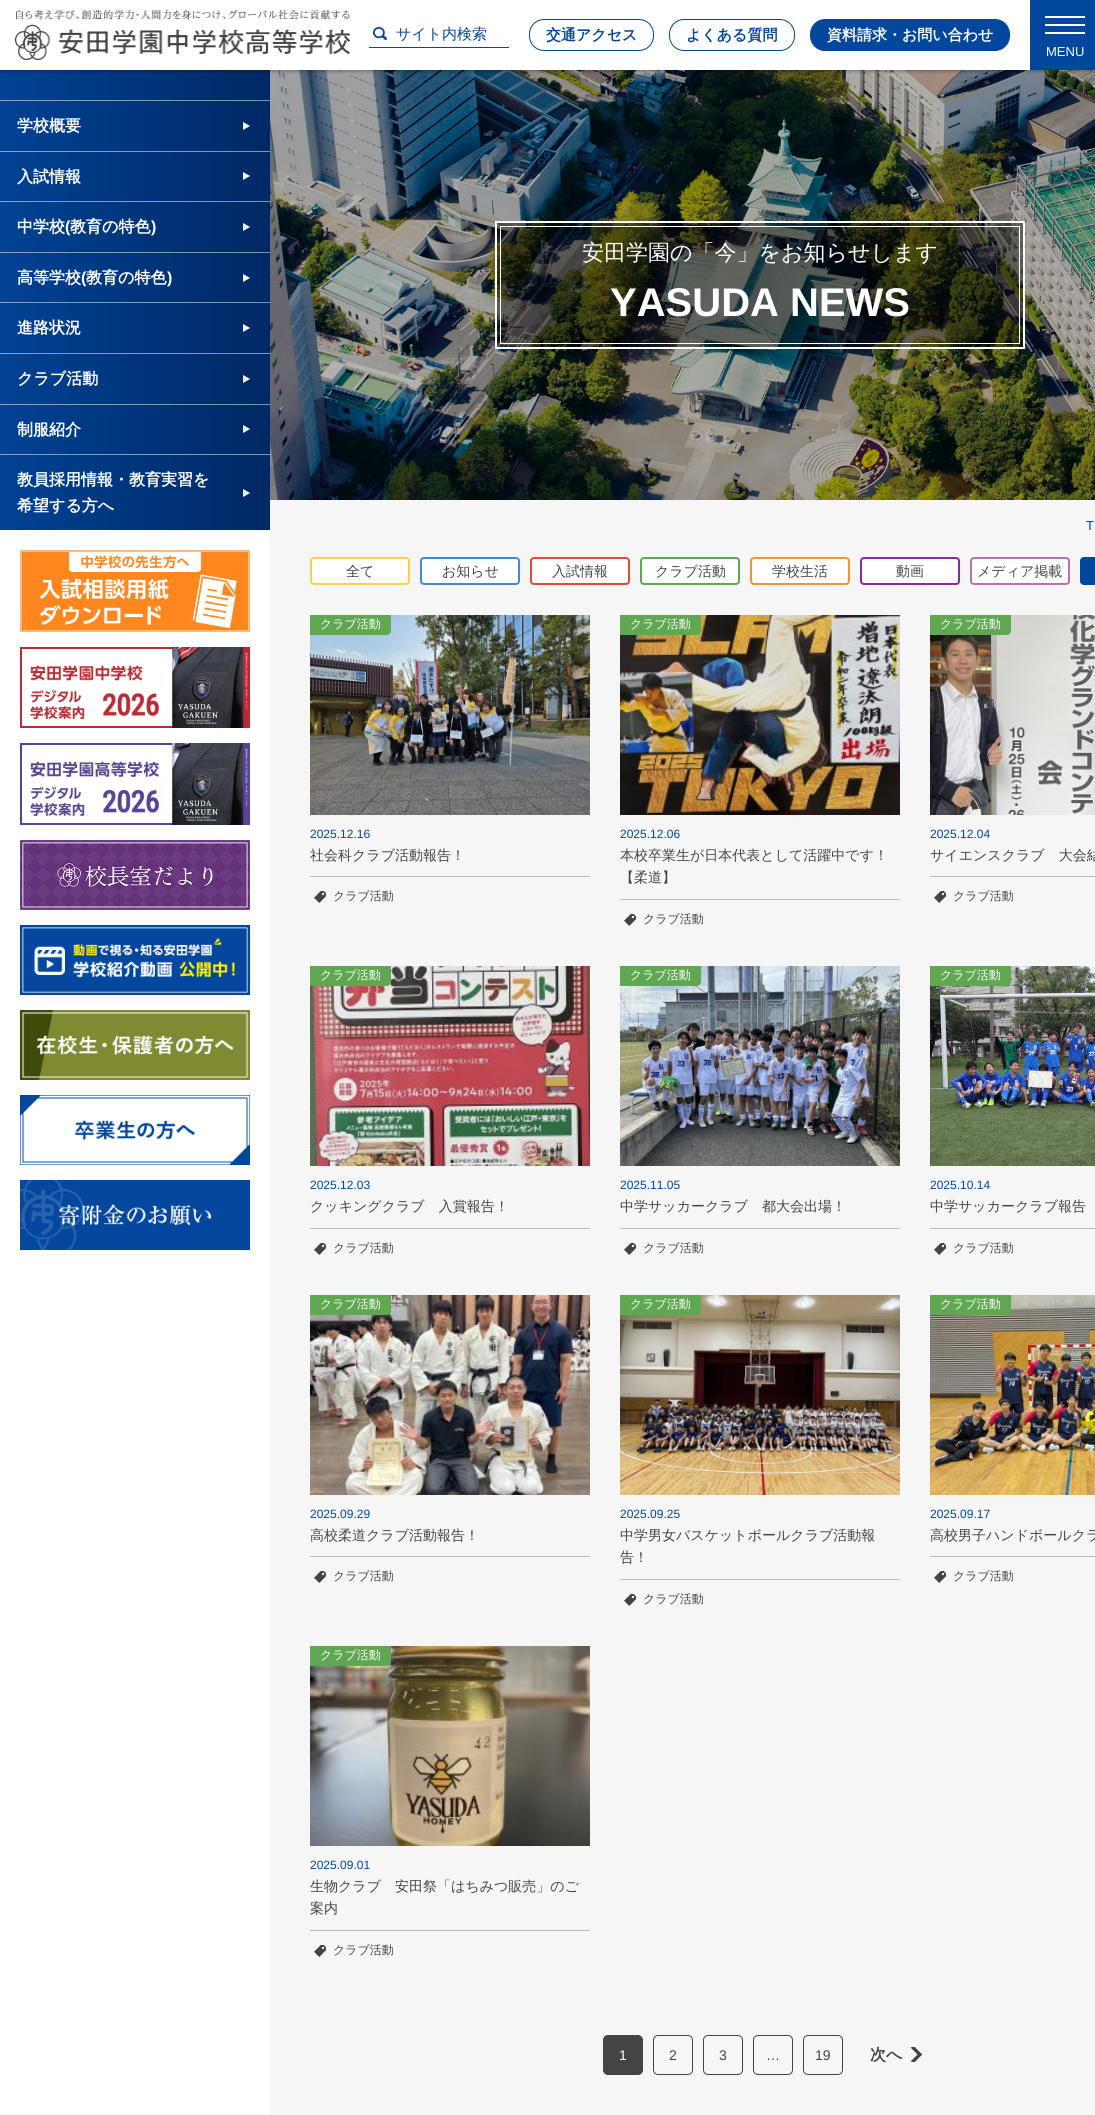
#include <cairo.h>
#include <math.h>
#include <stddef.h>

static cairo_t *ctx;

static void use_color(int r, int g, int b) {
    cairo_set_source_rgb(ctx, r / 255.0, g / 255.0, b / 255.0);
}

static void round_rect(double x, double y, double w, double h, double r) {
    cairo_new_sub_path(ctx);
    cairo_arc(ctx, x + w - r, y + h - r, r, 0, M_PI / 2);
    cairo_arc(ctx, x + r, y + h - r, r, M_PI / 2, M_PI);
    cairo_arc(ctx, x + r, y + r, r, M_PI, 1.5 * M_PI);
    cairo_arc(ctx, x + w - r, y + r, r, 1.5 * M_PI, 2 * M_PI);
    cairo_close_path(ctx);
}

static void shadow(double x, double y, double w, double h, double r, double blur, double alpha) {
    cairo_push_group_with_content(ctx, CAIRO_CONTENT_ALPHA);
    cairo_set_operator(ctx, CAIRO_OPERATOR_SOURCE);
    for (int i = 15; i >= -15 && fmin(w, h) + blur * i / 3 > 0; i -= 2) {
        double e = blur * i / 6;
        cairo_set_source_rgba(ctx, 0, 0, 0, alpha * erfc((i - 1) / 8.5) / 2);
        round_rect(x - e, y - e, w + 2 * e, h + 2 * e, fmax(0, fmin(r + e + blur * .6, fmin(w, h) / 2 + e)));
        cairo_fill(ctx);
    }
    cairo_pattern_t *soft = cairo_pop_group(ctx);
    cairo_mask(ctx, soft);
    cairo_pattern_destroy(soft);
}

static void picture(const char *path, double x, double y, double w, double h) {
    cairo_surface_t *image = cairo_image_surface_create_from_png(path);
    cairo_save(ctx);
    cairo_set_source_surface(ctx, image, x, y);
    cairo_rectangle(ctx, x, y, w, h);
    cairo_fill(ctx);
    cairo_restore(ctx);
    cairo_surface_destroy(image);
}

int main(void) {
    cairo_surface_t *surface = cairo_image_surface_create(CAIRO_FORMAT_RGB24, 1095, 2115);
    ctx = cairo_create(surface);
    cairo_font_options_t *options = cairo_font_options_create();
    cairo_font_options_set_hint_metrics(options, CAIRO_HINT_METRICS_OFF);
    cairo_font_options_set_hint_style(options, CAIRO_HINT_STYLE_NONE);
    cairo_set_font_options(ctx, options);
    cairo_set_miter_limit(ctx, 4);
    cairo_pattern_t *gradient;
    use_color(255, 255, 255);
    cairo_paint(ctx);
    gradient = cairo_pattern_create_linear(0, 300, 270, 300);
    cairo_pattern_add_color_stop_rgba(gradient, 0, 0, 0.259, 0.58, 1);
    cairo_pattern_add_color_stop_rgba(gradient, 1, 0, 0.157, 0.396, 1);
    cairo_set_source(ctx, gradient);
    cairo_pattern_destroy(gradient);
    cairo_rectangle(ctx, 0, 70, 270, 460);
    cairo_fill(ctx);
    picture("img11.png", 270, 70, 825, 430);
    cairo_save(ctx);
    cairo_rectangle(ctx, 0, 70, 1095, 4);
    cairo_clip(ctx);
    use_color(0, 0, 0);
    shadow(0, 0, 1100, 70, 0, 2.5, 0.5);
    cairo_restore(ctx);
    picture("img1.png", 15, 10, 335, 50);
    picture("img2.png", 373, 27, 14, 13);
    use_color(0, 71, 157);
    cairo_rectangle(ctx, 369, 47, 140, 1);
    cairo_fill(ctx);
    cairo_select_font_face(ctx, "WenQuanYi Zen Hei Medium", CAIRO_FONT_SLANT_NORMAL, CAIRO_FONT_WEIGHT_NORMAL);
    cairo_set_font_size(ctx, 15);
    cairo_move_to(ctx, 396, 39);
    cairo_show_text(ctx, "サイト内検索");
    round_rect(529.5, 19.5, 124, 31, 14.5);
    cairo_set_line_width(ctx, 1);
    cairo_stroke(ctx);
    cairo_select_font_face(ctx, "WenQuanYi Zen Hei", CAIRO_FONT_SLANT_NORMAL, CAIRO_FONT_WEIGHT_BOLD);
    cairo_move_to(ctx, 546, 40);
    cairo_show_text(ctx, "交通アクセス");
    round_rect(669.5, 19.5, 125, 31, 14.5);
    cairo_stroke(ctx);
    cairo_move_to(ctx, 686, 40);
    cairo_show_text(ctx, "よくある質問");
    round_rect(810.5, 19.5, 199, 31, 14.5);
    cairo_fill_preserve(ctx);
    cairo_stroke(ctx);
    use_color(255, 255, 255);
    cairo_move_to(ctx, 827, 40);
    cairo_show_text(ctx, "資料請求・お問い合わせ");
    use_color(0, 71, 157);
    cairo_rectangle(ctx, 1030, 0, 65, 70);
    cairo_fill(ctx);
    use_color(255, 255, 255);
    cairo_rectangle(ctx, 1045, 16, 40, 2);
    cairo_fill(ctx);
    cairo_rectangle(ctx, 1045, 24, 40, 2);
    cairo_fill(ctx);
    cairo_rectangle(ctx, 1045, 32, 40, 2);
    cairo_fill(ctx);
    cairo_select_font_face(ctx, "Liberation Sans", CAIRO_FONT_SLANT_NORMAL, CAIRO_FONT_WEIGHT_NORMAL);
    cairo_set_font_size(ctx, 13);
    cairo_move_to(ctx, 1046, 56);
    cairo_show_text(ctx, "MENU");
    gradient = cairo_pattern_create_linear(0, 300, 270, 300);
    cairo_pattern_add_color_stop_rgba(gradient, 0, 0.502, 0.631, 0.792, 1);
    cairo_pattern_add_color_stop_rgba(gradient, 1, 0.502, 0.58, 0.698, 1);
    cairo_set_source(ctx, gradient);
    cairo_pattern_destroy(gradient);
    cairo_rectangle(ctx, 0, 454, 270, 1);
    cairo_fill(ctx);
    cairo_rectangle(ctx, 0, 404, 270, 1);
    cairo_fill(ctx);
    cairo_rectangle(ctx, 0, 353, 270, 1);
    cairo_fill(ctx);
    cairo_rectangle(ctx, 0, 302, 270, 1);
    cairo_fill(ctx);
    cairo_rectangle(ctx, 0, 252, 270, 1);
    cairo_fill(ctx);
    cairo_rectangle(ctx, 0, 201, 270, 1);
    cairo_fill(ctx);
    cairo_rectangle(ctx, 0, 151, 270, 1);
    cairo_fill(ctx);
    cairo_rectangle(ctx, 0, 100, 270, 1);
    cairo_fill(ctx);
    cairo_select_font_face(ctx, "WenQuanYi Zen Hei", CAIRO_FONT_SLANT_NORMAL, CAIRO_FONT_WEIGHT_BOLD);
    cairo_set_font_size(ctx, 16);
    use_color(255, 255, 255);
    cairo_move_to(ctx, 17, 131);
    cairo_show_text(ctx, "学校概要");
    cairo_new_path(ctx);
    cairo_move_to(ctx, 243, 130);
    cairo_line_to(ctx, 243, 122);
    cairo_line_to(ctx, 250, 126);
    cairo_close_path(ctx);
    cairo_fill(ctx);
    cairo_move_to(ctx, 17, 182);
    cairo_show_text(ctx, "入試情報");
    cairo_new_path(ctx);
    cairo_move_to(ctx, 243, 180);
    cairo_line_to(ctx, 243, 172);
    cairo_line_to(ctx, 250, 176);
    cairo_close_path(ctx);
    cairo_fill(ctx);
    cairo_move_to(ctx, 17, 232);
    cairo_show_text(ctx, "中学校");
    cairo_select_font_face(ctx, "Liberation Sans", CAIRO_FONT_SLANT_NORMAL, CAIRO_FONT_WEIGHT_BOLD);
    cairo_move_to(ctx, 65, 232);
    cairo_show_text(ctx, "(");
    cairo_select_font_face(ctx, "WenQuanYi Zen Hei", CAIRO_FONT_SLANT_NORMAL, CAIRO_FONT_WEIGHT_BOLD);
    cairo_move_to(ctx, 70, 232);
    cairo_show_text(ctx, "教育の特色");
    cairo_select_font_face(ctx, "Liberation Sans", CAIRO_FONT_SLANT_NORMAL, CAIRO_FONT_WEIGHT_BOLD);
    cairo_move_to(ctx, 151, 232);
    cairo_show_text(ctx, ")");
    cairo_new_path(ctx);
    cairo_move_to(ctx, 243, 231);
    cairo_line_to(ctx, 243, 223);
    cairo_line_to(ctx, 250, 227);
    cairo_close_path(ctx);
    cairo_fill(ctx);
    cairo_select_font_face(ctx, "WenQuanYi Zen Hei", CAIRO_FONT_SLANT_NORMAL, CAIRO_FONT_WEIGHT_BOLD);
    cairo_move_to(ctx, 17, 283);
    cairo_show_text(ctx, "高等学校");
    cairo_select_font_face(ctx, "Liberation Sans", CAIRO_FONT_SLANT_NORMAL, CAIRO_FONT_WEIGHT_BOLD);
    cairo_move_to(ctx, 81, 283);
    cairo_show_text(ctx, "(");
    cairo_select_font_face(ctx, "WenQuanYi Zen Hei", CAIRO_FONT_SLANT_NORMAL, CAIRO_FONT_WEIGHT_BOLD);
    cairo_move_to(ctx, 86, 283);
    cairo_show_text(ctx, "教育の特色");
    cairo_select_font_face(ctx, "Liberation Sans", CAIRO_FONT_SLANT_NORMAL, CAIRO_FONT_WEIGHT_BOLD);
    cairo_move_to(ctx, 167, 283);
    cairo_show_text(ctx, ")");
    cairo_new_path(ctx);
    cairo_move_to(ctx, 243, 282);
    cairo_line_to(ctx, 243, 274);
    cairo_line_to(ctx, 250, 278);
    cairo_close_path(ctx);
    cairo_fill(ctx);
    cairo_select_font_face(ctx, "WenQuanYi Zen Hei", CAIRO_FONT_SLANT_NORMAL, CAIRO_FONT_WEIGHT_BOLD);
    cairo_move_to(ctx, 17, 333);
    cairo_show_text(ctx, "進路状況");
    cairo_new_path(ctx);
    cairo_move_to(ctx, 243, 332);
    cairo_line_to(ctx, 243, 324);
    cairo_line_to(ctx, 250, 328);
    cairo_close_path(ctx);
    cairo_fill(ctx);
    cairo_move_to(ctx, 17, 384);
    cairo_show_text(ctx, "クラブ活動");
    cairo_new_path(ctx);
    cairo_move_to(ctx, 243, 383);
    cairo_line_to(ctx, 243, 375);
    cairo_line_to(ctx, 250, 379);
    cairo_close_path(ctx);
    cairo_fill(ctx);
    cairo_move_to(ctx, 17, 435);
    cairo_show_text(ctx, "制服紹介");
    cairo_new_path(ctx);
    cairo_move_to(ctx, 243, 433);
    cairo_line_to(ctx, 243, 425);
    cairo_line_to(ctx, 250, 429);
    cairo_close_path(ctx);
    cairo_fill(ctx);
    cairo_move_to(ctx, 17, 485);
    cairo_show_text(ctx, "教員採用情報・教育実習を");
    cairo_new_path(ctx);
    cairo_move_to(ctx, 243, 497);
    cairo_line_to(ctx, 243, 489);
    cairo_line_to(ctx, 250, 493);
    cairo_close_path(ctx);
    cairo_fill(ctx);
    cairo_move_to(ctx, 17, 511);
    cairo_show_text(ctx, "希望する方へ");
    picture("img3.png", 20, 550, 230, 82);
    picture("img4.png", 20, 647, 230, 81);
    picture("img5.png", 20, 743, 230, 82);
    picture("img6.png", 20, 840, 230, 70);
    picture("img7.png", 20, 925, 230, 70);
    picture("img8.png", 20, 1010, 230, 70);
    picture("img9.png", 20, 1095, 230, 70);
    picture("img10.png", 20, 1180, 230, 70);
    use_color(246, 246, 246);
    cairo_rectangle(ctx, 270, 500, 825, 1615);
    cairo_fill(ctx);
    cairo_set_source_rgba(ctx, 0, 0, 0, 0.4);
    cairo_rectangle(ctx, 496, 222, 528, 126);
    cairo_fill_preserve(ctx);
    use_color(255, 255, 255);
    cairo_set_line_width(ctx, 2);
    cairo_stroke(ctx);
    cairo_rectangle(ctx, 500.5, 226.5, 519, 117);
    cairo_set_line_width(ctx, 1);
    cairo_stroke(ctx);
    cairo_select_font_face(ctx, "WenQuanYi Zen Hei Medium", CAIRO_FONT_SLANT_NORMAL, CAIRO_FONT_WEIGHT_NORMAL);
    cairo_set_font_size(ctx, 22);
    cairo_move_to(ctx, 582, 260);
    cairo_show_text(ctx, "安田学園の「今」をお知らせします");
    cairo_select_font_face(ctx, "Liberation Sans", CAIRO_FONT_SLANT_NORMAL, CAIRO_FONT_WEIGHT_BOLD);
    cairo_set_font_size(ctx, 40);
    cairo_move_to(ctx, 610, 316);
    cairo_show_text(ctx, "YASUDA NEWS");
    cairo_select_font_face(ctx, "Liberation Sans", CAIRO_FONT_SLANT_NORMAL, CAIRO_FONT_WEIGHT_NORMAL);
    cairo_set_font_size(ctx, 13);
    use_color(0, 71, 157);
    cairo_move_to(ctx, 1086, 530);
    cairo_show_text(ctx, "T");
    use_color(255, 255, 255);
    round_rect(311, 558, 98, 26, 3);
    cairo_fill_preserve(ctx);
    use_color(248, 211, 72);
    cairo_set_line_width(ctx, 2);
    cairo_stroke(ctx);
    cairo_select_font_face(ctx, "WenQuanYi Zen Hei Medium", CAIRO_FONT_SLANT_NORMAL, CAIRO_FONT_WEIGHT_NORMAL);
    cairo_set_font_size(ctx, 14);
    use_color(68, 68, 68);
    cairo_move_to(ctx, 346, 576);
    cairo_show_text(ctx, "全て");
    use_color(255, 255, 255);
    round_rect(421, 558, 98, 26, 3);
    cairo_fill_preserve(ctx);
    use_color(68, 138, 202);
    cairo_stroke(ctx);
    use_color(68, 68, 68);
    cairo_move_to(ctx, 442, 576);
    cairo_show_text(ctx, "お知らせ");
    use_color(255, 255, 255);
    round_rect(531, 558, 98, 26, 3);
    cairo_fill_preserve(ctx);
    use_color(225, 73, 57);
    cairo_stroke(ctx);
    use_color(68, 68, 68);
    cairo_move_to(ctx, 552, 576);
    cairo_show_text(ctx, "入試情報");
    use_color(255, 255, 255);
    round_rect(641, 558, 98, 26, 3);
    cairo_fill_preserve(ctx);
    use_color(96, 167, 82);
    cairo_stroke(ctx);
    use_color(68, 68, 68);
    cairo_move_to(ctx, 655, 576);
    cairo_show_text(ctx, "クラブ活動");
    use_color(255, 255, 255);
    round_rect(751, 558, 98, 26, 3);
    cairo_fill_preserve(ctx);
    use_color(240, 148, 54);
    cairo_stroke(ctx);
    use_color(68, 68, 68);
    cairo_move_to(ctx, 772, 576);
    cairo_show_text(ctx, "学校生活");
    use_color(255, 255, 255);
    round_rect(861, 558, 98, 26, 3);
    cairo_fill_preserve(ctx);
    use_color(136, 41, 166);
    cairo_stroke(ctx);
    use_color(68, 68, 68);
    cairo_move_to(ctx, 896, 576);
    cairo_show_text(ctx, "動画");
    use_color(255, 255, 255);
    round_rect(971, 558, 98, 26, 3);
    cairo_fill_preserve(ctx);
    use_color(187, 113, 175);
    cairo_stroke(ctx);
    use_color(68, 68, 68);
    cairo_move_to(ctx, 977, 576);
    cairo_show_text(ctx, "メディア掲載");
    use_color(0, 71, 157);
    round_rect(1080, 557, 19, 28, 4);
    cairo_fill(ctx);
    picture("img12.png", 310, 615, 280, 200);
    use_color(96, 167, 82);
    cairo_new_path(ctx);
    cairo_move_to(ctx, 310, 615);
    cairo_line_to(ctx, 391, 615);
    cairo_line_to(ctx, 391, 631);
    cairo_curve_to(ctx, 391, 633, 389, 635, 387, 635);
    cairo_line_to(ctx, 310, 635);
    cairo_close_path(ctx);
    cairo_fill(ctx);
    cairo_set_font_size(ctx, 12);
    use_color(255, 255, 255);
    cairo_move_to(ctx, 320, 628);
    cairo_show_text(ctx, "クラブ活動");
    use_color(187, 187, 187);
    cairo_rectangle(ctx, 310, 876, 280, 1);
    cairo_fill(ctx);
    cairo_select_font_face(ctx, "Liberation Sans", CAIRO_FONT_SLANT_NORMAL, CAIRO_FONT_WEIGHT_NORMAL);
    use_color(0, 71, 157);
    cairo_move_to(ctx, 310, 838);
    cairo_show_text(ctx, "2025.12.16");
    cairo_select_font_face(ctx, "WenQuanYi Zen Hei Medium", CAIRO_FONT_SLANT_NORMAL, CAIRO_FONT_WEIGHT_NORMAL);
    cairo_set_font_size(ctx, 14);
    use_color(68, 68, 68);
    cairo_move_to(ctx, 310, 860);
    cairo_show_text(ctx, "社会科クラブ活動報告！");
    picture("img13.png", 314, 891, 12, 12);
    cairo_set_font_size(ctx, 12);
    cairo_move_to(ctx, 333, 900);
    cairo_show_text(ctx, "クラブ活動");
    picture("img14.png", 620, 615, 280, 200);
    use_color(96, 167, 82);
    cairo_new_path(ctx);
    cairo_move_to(ctx, 620, 615);
    cairo_line_to(ctx, 701, 615);
    cairo_line_to(ctx, 701, 631);
    cairo_curve_to(ctx, 701, 633, 699, 635, 697, 635);
    cairo_line_to(ctx, 620, 635);
    cairo_close_path(ctx);
    cairo_fill(ctx);
    use_color(255, 255, 255);
    cairo_move_to(ctx, 630, 628);
    cairo_show_text(ctx, "クラブ活動");
    use_color(187, 187, 187);
    cairo_rectangle(ctx, 620, 899, 280, 1);
    cairo_fill(ctx);
    cairo_select_font_face(ctx, "Liberation Sans", CAIRO_FONT_SLANT_NORMAL, CAIRO_FONT_WEIGHT_NORMAL);
    use_color(0, 71, 157);
    cairo_move_to(ctx, 620, 838);
    cairo_show_text(ctx, "2025.12.06");
    cairo_select_font_face(ctx, "WenQuanYi Zen Hei Medium", CAIRO_FONT_SLANT_NORMAL, CAIRO_FONT_WEIGHT_NORMAL);
    cairo_set_font_size(ctx, 14);
    use_color(68, 68, 68);
    cairo_move_to(ctx, 620, 860);
    cairo_show_text(ctx, "本校卒業生が日本代表として活躍中です！");
    cairo_move_to(ctx, 620, 882);
    cairo_show_text(ctx, "【柔道】");
    picture("img13.png", 624, 914, 12, 12);
    cairo_set_font_size(ctx, 12);
    cairo_move_to(ctx, 643, 923);
    cairo_show_text(ctx, "クラブ活動");
    picture("img15.png", 930, 615, 165, 200);
    use_color(96, 167, 82);
    cairo_new_path(ctx);
    cairo_move_to(ctx, 930, 615);
    cairo_line_to(ctx, 1011, 615);
    cairo_line_to(ctx, 1011, 631);
    cairo_curve_to(ctx, 1011, 633, 1009, 635, 1007, 635);
    cairo_line_to(ctx, 930, 635);
    cairo_close_path(ctx);
    cairo_fill(ctx);
    use_color(255, 255, 255);
    cairo_move_to(ctx, 940, 628);
    cairo_show_text(ctx, "クラブ活動");
    use_color(187, 187, 187);
    cairo_rectangle(ctx, 930, 876, 165, 1);
    cairo_fill(ctx);
    cairo_select_font_face(ctx, "Liberation Sans", CAIRO_FONT_SLANT_NORMAL, CAIRO_FONT_WEIGHT_NORMAL);
    use_color(0, 71, 157);
    cairo_move_to(ctx, 930, 838);
    cairo_show_text(ctx, "2025.12.04");
    cairo_select_font_face(ctx, "WenQuanYi Zen Hei Medium", CAIRO_FONT_SLANT_NORMAL, CAIRO_FONT_WEIGHT_NORMAL);
    cairo_set_font_size(ctx, 14);
    use_color(68, 68, 68);
    cairo_move_to(ctx, 930, 860);
    cairo_show_text(ctx, "サイエンスクラブ　大会結");
    picture("img13.png", 934, 891, 12, 12);
    cairo_set_font_size(ctx, 12);
    cairo_move_to(ctx, 953, 900);
    cairo_show_text(ctx, "クラブ活動");
    picture("img16.png", 310, 966, 280, 200);
    use_color(96, 167, 82);
    cairo_new_path(ctx);
    cairo_move_to(ctx, 310, 966);
    cairo_line_to(ctx, 391, 966);
    cairo_line_to(ctx, 391, 982);
    cairo_curve_to(ctx, 391, 984, 389, 986, 387, 986);
    cairo_line_to(ctx, 310, 986);
    cairo_close_path(ctx);
    cairo_fill(ctx);
    use_color(255, 255, 255);
    cairo_move_to(ctx, 320, 979);
    cairo_show_text(ctx, "クラブ活動");
    use_color(187, 187, 187);
    cairo_rectangle(ctx, 310, 1228, 280, 1);
    cairo_fill(ctx);
    cairo_select_font_face(ctx, "Liberation Sans", CAIRO_FONT_SLANT_NORMAL, CAIRO_FONT_WEIGHT_NORMAL);
    use_color(0, 71, 157);
    cairo_move_to(ctx, 310, 1189);
    cairo_show_text(ctx, "2025.12.03");
    cairo_select_font_face(ctx, "WenQuanYi Zen Hei Medium", CAIRO_FONT_SLANT_NORMAL, CAIRO_FONT_WEIGHT_NORMAL);
    cairo_set_font_size(ctx, 14);
    use_color(68, 68, 68);
    cairo_move_to(ctx, 310, 1211);
    cairo_show_text(ctx, "クッキングクラブ　入賞報告！");
    picture("img13.png", 314, 1243, 12, 12);
    cairo_set_font_size(ctx, 12);
    cairo_move_to(ctx, 333, 1252);
    cairo_show_text(ctx, "クラブ活動");
    picture("img17.png", 620, 966, 280, 200);
    use_color(96, 167, 82);
    cairo_new_path(ctx);
    cairo_move_to(ctx, 620, 966);
    cairo_line_to(ctx, 701, 966);
    cairo_line_to(ctx, 701, 982);
    cairo_curve_to(ctx, 701, 984, 699, 986, 697, 986);
    cairo_line_to(ctx, 620, 986);
    cairo_close_path(ctx);
    cairo_fill(ctx);
    use_color(255, 255, 255);
    cairo_move_to(ctx, 630, 979);
    cairo_show_text(ctx, "クラブ活動");
    use_color(187, 187, 187);
    cairo_rectangle(ctx, 620, 1228, 280, 1);
    cairo_fill(ctx);
    cairo_select_font_face(ctx, "Liberation Sans", CAIRO_FONT_SLANT_NORMAL, CAIRO_FONT_WEIGHT_NORMAL);
    use_color(0, 71, 157);
    cairo_move_to(ctx, 620, 1189);
    cairo_show_text(ctx, "2025.11.05");
    cairo_select_font_face(ctx, "WenQuanYi Zen Hei Medium", CAIRO_FONT_SLANT_NORMAL, CAIRO_FONT_WEIGHT_NORMAL);
    cairo_set_font_size(ctx, 14);
    use_color(68, 68, 68);
    cairo_move_to(ctx, 620, 1211);
    cairo_show_text(ctx, "中学サッカークラブ　都大会出場！");
    picture("img13.png", 624, 1243, 12, 12);
    cairo_set_font_size(ctx, 12);
    cairo_move_to(ctx, 643, 1252);
    cairo_show_text(ctx, "クラブ活動");
    picture("img18.png", 930, 966, 165, 200);
    use_color(96, 167, 82);
    cairo_new_path(ctx);
    cairo_move_to(ctx, 930, 966);
    cairo_line_to(ctx, 1011, 966);
    cairo_line_to(ctx, 1011, 982);
    cairo_curve_to(ctx, 1011, 984, 1009, 986, 1007, 986);
    cairo_line_to(ctx, 930, 986);
    cairo_close_path(ctx);
    cairo_fill(ctx);
    use_color(255, 255, 255);
    cairo_move_to(ctx, 940, 979);
    cairo_show_text(ctx, "クラブ活動");
    use_color(187, 187, 187);
    cairo_rectangle(ctx, 930, 1228, 165, 1);
    cairo_fill(ctx);
    cairo_select_font_face(ctx, "Liberation Sans", CAIRO_FONT_SLANT_NORMAL, CAIRO_FONT_WEIGHT_NORMAL);
    use_color(0, 71, 157);
    cairo_move_to(ctx, 930, 1189);
    cairo_show_text(ctx, "2025.10.14");
    cairo_select_font_face(ctx, "WenQuanYi Zen Hei Medium", CAIRO_FONT_SLANT_NORMAL, CAIRO_FONT_WEIGHT_NORMAL);
    cairo_set_font_size(ctx, 14);
    use_color(68, 68, 68);
    cairo_move_to(ctx, 930, 1211);
    cairo_show_text(ctx, "中学サッカークラブ報告");
    picture("img13.png", 934, 1243, 12, 12);
    cairo_set_font_size(ctx, 12);
    cairo_move_to(ctx, 953, 1252);
    cairo_show_text(ctx, "クラブ活動");
    picture("img19.png", 310, 1295, 280, 200);
    use_color(96, 167, 82);
    cairo_new_path(ctx);
    cairo_move_to(ctx, 310, 1295);
    cairo_line_to(ctx, 391, 1295);
    cairo_line_to(ctx, 391, 1311);
    cairo_curve_to(ctx, 391, 1313, 389, 1315, 387, 1315);
    cairo_line_to(ctx, 310, 1315);
    cairo_close_path(ctx);
    cairo_fill(ctx);
    use_color(255, 255, 255);
    cairo_move_to(ctx, 320, 1308);
    cairo_show_text(ctx, "クラブ活動");
    use_color(187, 187, 187);
    cairo_rectangle(ctx, 310, 1556, 280, 1);
    cairo_fill(ctx);
    cairo_select_font_face(ctx, "Liberation Sans", CAIRO_FONT_SLANT_NORMAL, CAIRO_FONT_WEIGHT_NORMAL);
    use_color(0, 71, 157);
    cairo_move_to(ctx, 310, 1518);
    cairo_show_text(ctx, "2025.09.29");
    cairo_select_font_face(ctx, "WenQuanYi Zen Hei Medium", CAIRO_FONT_SLANT_NORMAL, CAIRO_FONT_WEIGHT_NORMAL);
    cairo_set_font_size(ctx, 14);
    use_color(68, 68, 68);
    cairo_move_to(ctx, 310, 1540);
    cairo_show_text(ctx, "高校柔道クラブ活動報告！");
    picture("img13.png", 314, 1571, 12, 12);
    cairo_set_font_size(ctx, 12);
    cairo_move_to(ctx, 333, 1580);
    cairo_show_text(ctx, "クラブ活動");
    picture("img20.png", 620, 1295, 280, 200);
    use_color(96, 167, 82);
    cairo_new_path(ctx);
    cairo_move_to(ctx, 620, 1295);
    cairo_line_to(ctx, 701, 1295);
    cairo_line_to(ctx, 701, 1311);
    cairo_curve_to(ctx, 701, 1313, 699, 1315, 697, 1315);
    cairo_line_to(ctx, 620, 1315);
    cairo_close_path(ctx);
    cairo_fill(ctx);
    use_color(255, 255, 255);
    cairo_move_to(ctx, 630, 1308);
    cairo_show_text(ctx, "クラブ活動");
    use_color(187, 187, 187);
    cairo_rectangle(ctx, 620, 1579, 280, 1);
    cairo_fill(ctx);
    cairo_select_font_face(ctx, "Liberation Sans", CAIRO_FONT_SLANT_NORMAL, CAIRO_FONT_WEIGHT_NORMAL);
    use_color(0, 71, 157);
    cairo_move_to(ctx, 620, 1518);
    cairo_show_text(ctx, "2025.09.25");
    cairo_select_font_face(ctx, "WenQuanYi Zen Hei Medium", CAIRO_FONT_SLANT_NORMAL, CAIRO_FONT_WEIGHT_NORMAL);
    cairo_set_font_size(ctx, 14);
    use_color(68, 68, 68);
    cairo_move_to(ctx, 620, 1540);
    cairo_show_text(ctx, "中学男女バスケットボールクラブ活動報");
    cairo_move_to(ctx, 620, 1562);
    cairo_show_text(ctx, "告！");
    picture("img13.png", 624, 1594, 12, 12);
    cairo_set_font_size(ctx, 12);
    cairo_move_to(ctx, 643, 1603);
    cairo_show_text(ctx, "クラブ活動");
    picture("img21.png", 930, 1295, 165, 200);
    use_color(96, 167, 82);
    cairo_new_path(ctx);
    cairo_move_to(ctx, 930, 1295);
    cairo_line_to(ctx, 1011, 1295);
    cairo_line_to(ctx, 1011, 1311);
    cairo_curve_to(ctx, 1011, 1313, 1009, 1315, 1007, 1315);
    cairo_line_to(ctx, 930, 1315);
    cairo_close_path(ctx);
    cairo_fill(ctx);
    use_color(255, 255, 255);
    cairo_move_to(ctx, 940, 1308);
    cairo_show_text(ctx, "クラブ活動");
    use_color(187, 187, 187);
    cairo_rectangle(ctx, 930, 1556, 165, 1);
    cairo_fill(ctx);
    cairo_select_font_face(ctx, "Liberation Sans", CAIRO_FONT_SLANT_NORMAL, CAIRO_FONT_WEIGHT_NORMAL);
    use_color(0, 71, 157);
    cairo_move_to(ctx, 930, 1518);
    cairo_show_text(ctx, "2025.09.17");
    cairo_select_font_face(ctx, "WenQuanYi Zen Hei Medium", CAIRO_FONT_SLANT_NORMAL, CAIRO_FONT_WEIGHT_NORMAL);
    cairo_set_font_size(ctx, 14);
    use_color(68, 68, 68);
    cairo_move_to(ctx, 930, 1540);
    cairo_show_text(ctx, "高校男子ハンドボールクラ");
    picture("img13.png", 934, 1571, 12, 12);
    cairo_set_font_size(ctx, 12);
    cairo_move_to(ctx, 953, 1580);
    cairo_show_text(ctx, "クラブ活動");
    picture("img22.png", 310, 1646, 280, 200);
    use_color(96, 167, 82);
    cairo_new_path(ctx);
    cairo_move_to(ctx, 310, 1646);
    cairo_line_to(ctx, 391, 1646);
    cairo_line_to(ctx, 391, 1662);
    cairo_curve_to(ctx, 391, 1664, 389, 1666, 387, 1666);
    cairo_line_to(ctx, 310, 1666);
    cairo_close_path(ctx);
    cairo_fill(ctx);
    use_color(255, 255, 255);
    cairo_move_to(ctx, 320, 1659);
    cairo_show_text(ctx, "クラブ活動");
    use_color(187, 187, 187);
    cairo_rectangle(ctx, 310, 1930, 280, 1);
    cairo_fill(ctx);
    cairo_select_font_face(ctx, "Liberation Sans", CAIRO_FONT_SLANT_NORMAL, CAIRO_FONT_WEIGHT_NORMAL);
    use_color(0, 71, 157);
    cairo_move_to(ctx, 310, 1869);
    cairo_show_text(ctx, "2025.09.01");
    cairo_select_font_face(ctx, "WenQuanYi Zen Hei Medium", CAIRO_FONT_SLANT_NORMAL, CAIRO_FONT_WEIGHT_NORMAL);
    cairo_set_font_size(ctx, 14);
    use_color(68, 68, 68);
    cairo_move_to(ctx, 310, 1891);
    cairo_show_text(ctx, "生物クラブ　安田祭「はちみつ販売」のご");
    cairo_move_to(ctx, 310, 1913);
    cairo_show_text(ctx, "案内");
    picture("img13.png", 314, 1945, 12, 12);
    cairo_set_font_size(ctx, 12);
    cairo_move_to(ctx, 333, 1954);
    cairo_show_text(ctx, "クラブ活動");
    round_rect(603.5, 2035.5, 39, 39, 4.5);
    cairo_fill_preserve(ctx);
    cairo_set_line_width(ctx, 1);
    cairo_stroke(ctx);
    cairo_select_font_face(ctx, "Liberation Sans", CAIRO_FONT_SLANT_NORMAL, CAIRO_FONT_WEIGHT_NORMAL);
    cairo_set_font_size(ctx, 14);
    use_color(255, 255, 255);
    cairo_move_to(ctx, 619, 2060);
    cairo_show_text(ctx, "1");
    round_rect(653.5, 2035.5, 39, 39, 4.5);
    use_color(68, 68, 68);
    cairo_stroke(ctx);
    cairo_move_to(ctx, 669, 2060);
    cairo_show_text(ctx, "2");
    round_rect(703.5, 2035.5, 39, 39, 4.5);
    cairo_stroke(ctx);
    cairo_move_to(ctx, 719, 2060);
    cairo_show_text(ctx, "3");
    round_rect(753.5, 2035.5, 39, 39, 4.5);
    cairo_stroke(ctx);
    cairo_move_to(ctx, 766, 2060);
    cairo_show_text(ctx, "…");
    round_rect(803.5, 2035.5, 39, 39, 4.5);
    cairo_stroke(ctx);
    cairo_move_to(ctx, 815, 2060);
    cairo_show_text(ctx, "19");
    cairo_select_font_face(ctx, "WenQuanYi Zen Hei", CAIRO_FONT_SLANT_NORMAL, CAIRO_FONT_WEIGHT_BOLD);
    cairo_set_font_size(ctx, 16);
    cairo_move_to(ctx, 870, 2060);
    cairo_show_text(ctx, "次へ");
    picture("img23.png", 911, 2047, 11, 15);
    cairo_surface_write_to_png(surface, "result.png");
    cairo_font_options_destroy(options);
    cairo_destroy(ctx);
    cairo_surface_destroy(surface);
    return 0;
}
